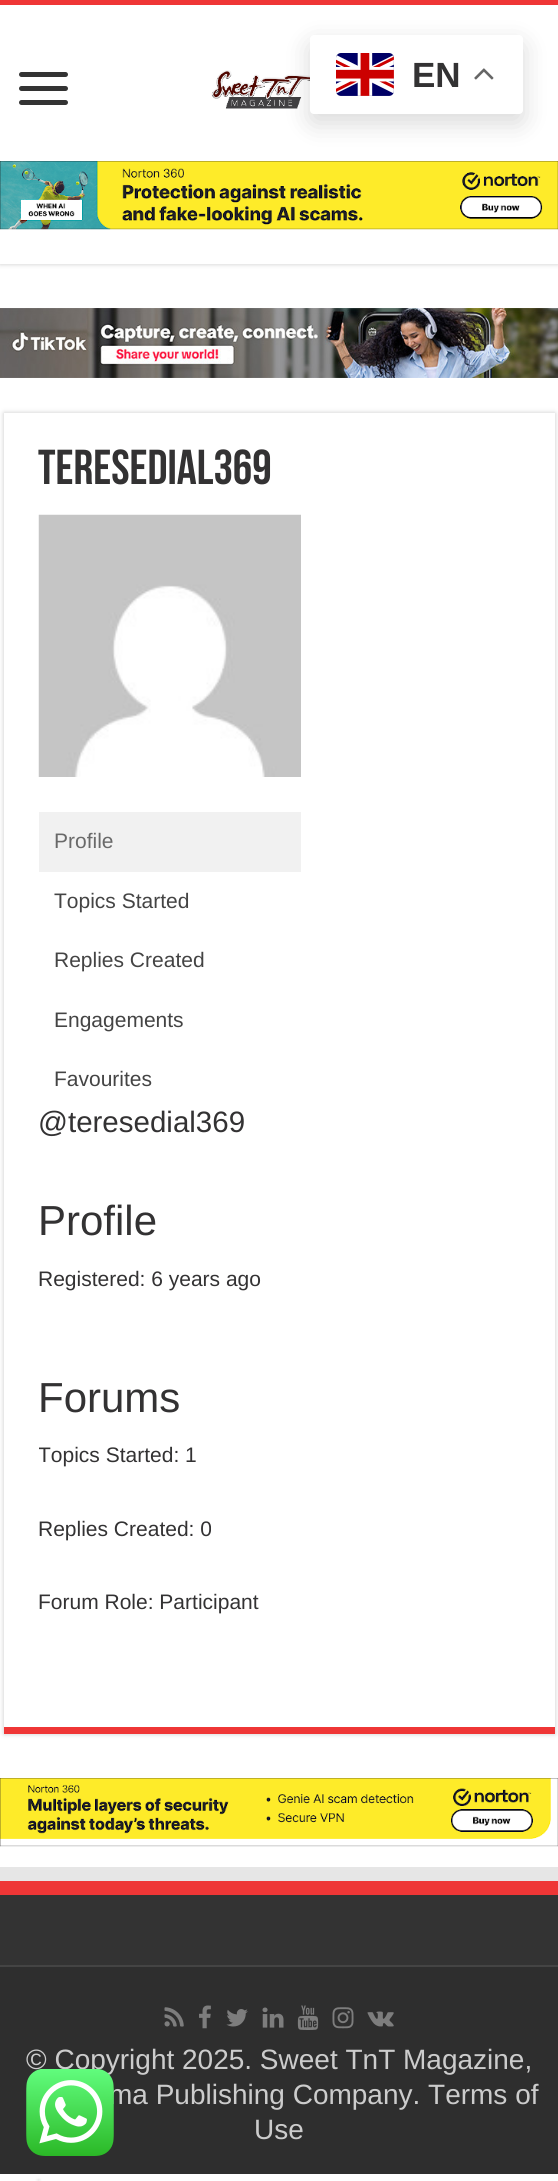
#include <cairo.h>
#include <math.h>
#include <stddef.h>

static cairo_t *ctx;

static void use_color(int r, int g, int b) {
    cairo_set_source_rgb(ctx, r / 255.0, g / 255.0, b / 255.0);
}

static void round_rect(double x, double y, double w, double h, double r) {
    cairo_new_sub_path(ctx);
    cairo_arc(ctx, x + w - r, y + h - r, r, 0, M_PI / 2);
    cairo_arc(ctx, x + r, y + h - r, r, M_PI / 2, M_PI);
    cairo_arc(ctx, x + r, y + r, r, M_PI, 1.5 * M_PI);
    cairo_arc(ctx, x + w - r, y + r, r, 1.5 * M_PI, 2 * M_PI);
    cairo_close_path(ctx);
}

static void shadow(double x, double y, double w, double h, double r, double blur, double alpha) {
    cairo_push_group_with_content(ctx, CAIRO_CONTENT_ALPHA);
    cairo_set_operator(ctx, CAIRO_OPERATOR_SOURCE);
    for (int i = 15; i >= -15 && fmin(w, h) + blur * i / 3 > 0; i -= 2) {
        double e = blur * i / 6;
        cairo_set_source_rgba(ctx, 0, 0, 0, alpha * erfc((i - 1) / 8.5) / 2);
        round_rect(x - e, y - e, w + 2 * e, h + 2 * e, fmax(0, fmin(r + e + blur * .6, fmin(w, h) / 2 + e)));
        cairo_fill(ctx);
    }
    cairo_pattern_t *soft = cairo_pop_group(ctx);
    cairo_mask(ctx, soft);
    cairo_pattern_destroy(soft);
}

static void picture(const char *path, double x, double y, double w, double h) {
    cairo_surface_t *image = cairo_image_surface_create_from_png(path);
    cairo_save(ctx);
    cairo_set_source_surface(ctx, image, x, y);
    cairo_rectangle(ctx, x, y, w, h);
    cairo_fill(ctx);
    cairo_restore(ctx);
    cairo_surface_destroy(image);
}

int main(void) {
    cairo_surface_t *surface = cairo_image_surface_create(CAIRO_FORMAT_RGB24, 558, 2181);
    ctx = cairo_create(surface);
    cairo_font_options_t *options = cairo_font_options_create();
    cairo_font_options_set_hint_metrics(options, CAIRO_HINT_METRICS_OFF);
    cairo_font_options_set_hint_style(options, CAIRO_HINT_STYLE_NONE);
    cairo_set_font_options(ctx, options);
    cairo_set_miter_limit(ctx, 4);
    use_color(255, 255, 255);
    cairo_paint(ctx);
    picture("img1.png", 35, 2176, 7, 5);
    cairo_save(ctx);
    cairo_rectangle(ctx, 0, 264, 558, 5);
    cairo_clip(ctx);
    use_color(202, 202, 202);
    shadow(0, 0, 558, 264, 0, 2.5, 1);
    cairo_restore(ctx);
    use_color(239, 54, 54);
    cairo_rectangle(ctx, 0, 0, 558, 5);
    cairo_fill(ctx);
    picture("img4.png", 211, 70, 99, 39);
    picture("img5.png", 0, 161, 558, 69);
    use_color(0, 0, 0);
    shadow(310, 44, 213, 79, 4, 13, 0.15);
    use_color(255, 255, 255);
    round_rect(310, 35, 213, 79, 4);
    cairo_fill(ctx);
    picture("img2.png", 336, 53, 58, 43);
    cairo_select_font_face(ctx, "Liberation Sans", CAIRO_FONT_SLANT_NORMAL, CAIRO_FONT_WEIGHT_BOLD);
    cairo_set_font_size(ctx, 35);
    use_color(51, 50, 51);
    cairo_move_to(ctx, 412, 87);
    cairo_show_text(ctx, "EN");
    picture("img3.png", 474, 68, 20, 12);
    use_color(51, 51, 51);
    round_rect(19, 72, 49, 5, 2.5);
    cairo_fill(ctx);
    round_rect(19, 86, 49, 5, 2.5);
    cairo_fill(ctx);
    round_rect(19, 100, 49, 5, 2.5);
    cairo_fill(ctx);
    picture("img6.png", 0, 308, 558, 70);
    use_color(202, 202, 202);
    shadow(4, 413, 551, 1321, 0, 2.5, 1);
    use_color(255, 255, 255);
    cairo_rectangle(ctx, 4, 413, 551, 1314);
    cairo_fill(ctx);
    use_color(239, 54, 54);
    cairo_rectangle(ctx, 4, 1727, 551, 7);
    cairo_fill(ctx);
    cairo_select_font_face(ctx, "Bebas Neue", CAIRO_FONT_SLANT_NORMAL, CAIRO_FONT_WEIGHT_BOLD);
    cairo_set_font_size(ctx, 49);
    use_color(51, 50, 51);
    cairo_move_to(ctx, 38, 484);
    cairo_show_text(ctx, "teresedial369");
    picture("img7.png", 38, 514, 263, 263);
    use_color(241, 241, 241);
    cairo_rectangle(ctx, 39, 812, 262, 60);
    cairo_fill(ctx);
    cairo_select_font_face(ctx, "Liberation Sans", CAIRO_FONT_SLANT_NORMAL, CAIRO_FONT_WEIGHT_NORMAL);
    cairo_set_font_size(ctx, 21);
    use_color(105, 105, 105);
    cairo_move_to(ctx, 54, 848);
    cairo_show_text(ctx, "Profile");
    use_color(68, 68, 68);
    cairo_move_to(ctx, 54, 908);
    cairo_show_text(ctx, "Topics Started");
    cairo_move_to(ctx, 54, 967);
    cairo_show_text(ctx, "Replies Created");
    cairo_move_to(ctx, 54, 1027);
    cairo_show_text(ctx, "Engagements");
    cairo_move_to(ctx, 54, 1086);
    cairo_show_text(ctx, "Favourites");
    cairo_set_font_size(ctx, 29.5);
    use_color(51, 50, 51);
    cairo_move_to(ctx, 38, 1132);
    cairo_show_text(ctx, "@teresedial369");
    cairo_set_font_size(ctx, 42);
    cairo_move_to(ctx, 38, 1235);
    cairo_show_text(ctx, "Profile");
    cairo_set_font_size(ctx, 21);
    cairo_move_to(ctx, 38, 1286);
    cairo_show_text(ctx, "Registered: 6 years ago");
    cairo_set_font_size(ctx, 42);
    cairo_move_to(ctx, 38, 1412);
    cairo_show_text(ctx, "Forums");
    cairo_save(ctx);
    cairo_rectangle(ctx, 39, 1157, 481, 500);
    cairo_clip(ctx);
    cairo_set_font_size(ctx, 21);
    cairo_move_to(ctx, 38, 1462);
    cairo_show_text(ctx, "Topics Started: 1");
    cairo_restore(ctx);
    cairo_set_font_size(ctx, 21);
    cairo_move_to(ctx, 38, 1536);
    cairo_show_text(ctx, "Replies Created: 0");
    cairo_move_to(ctx, 38, 1609);
    cairo_show_text(ctx, "Forum Role: Participant");
    picture("img8.png", 0, 1778, 558, 69);
    use_color(230, 230, 230);
    cairo_rectangle(ctx, 0, 1867, 558, 14);
    cairo_fill(ctx);
    use_color(51, 51, 51);
    cairo_rectangle(ctx, 0, 1895, 558, 70);
    cairo_fill(ctx);
    use_color(239, 54, 54);
    cairo_rectangle(ctx, 0, 1881, 558, 14);
    cairo_fill(ctx);
    use_color(46, 46, 46);
    cairo_rectangle(ctx, 0, 1967, 558, 207);
    cairo_fill(ctx);
    use_color(68, 68, 68);
    cairo_rectangle(ctx, 0, 1965, 558, 2);
    cairo_fill(ctx);
    picture("img9.png", 164, 2007, 20, 20);
    picture("img10.png", 199, 2005, 12, 24);
    picture("img11.png", 226, 2009, 22, 18);
    picture("img12.png", 262, 2007, 22, 21);
    picture("img13.png", 297, 2005, 22, 25);
    picture("img14.png", 332, 2007, 22, 22);
    picture("img15.png", 367, 2011, 27, 16);
    cairo_set_font_size(ctx, 28);
    use_color(204, 204, 204);
    cairo_move_to(ctx, 26, 2069);
    cairo_show_text(ctx, "© Copyright 2025. Sweet TnT Magazine,");
    cairo_move_to(ctx, 109, 2104);
    cairo_show_text(ctx, "ma Publishing Company. Terms of");
    cairo_move_to(ctx, 254, 2139);
    cairo_show_text(ctx, "Use");
    picture("img16.png", 26, 2069, 88, 87);
    cairo_surface_write_to_png(surface, "result.png");
    cairo_font_options_destroy(options);
    cairo_destroy(ctx);
    cairo_surface_destroy(surface);
    return 0;
}
